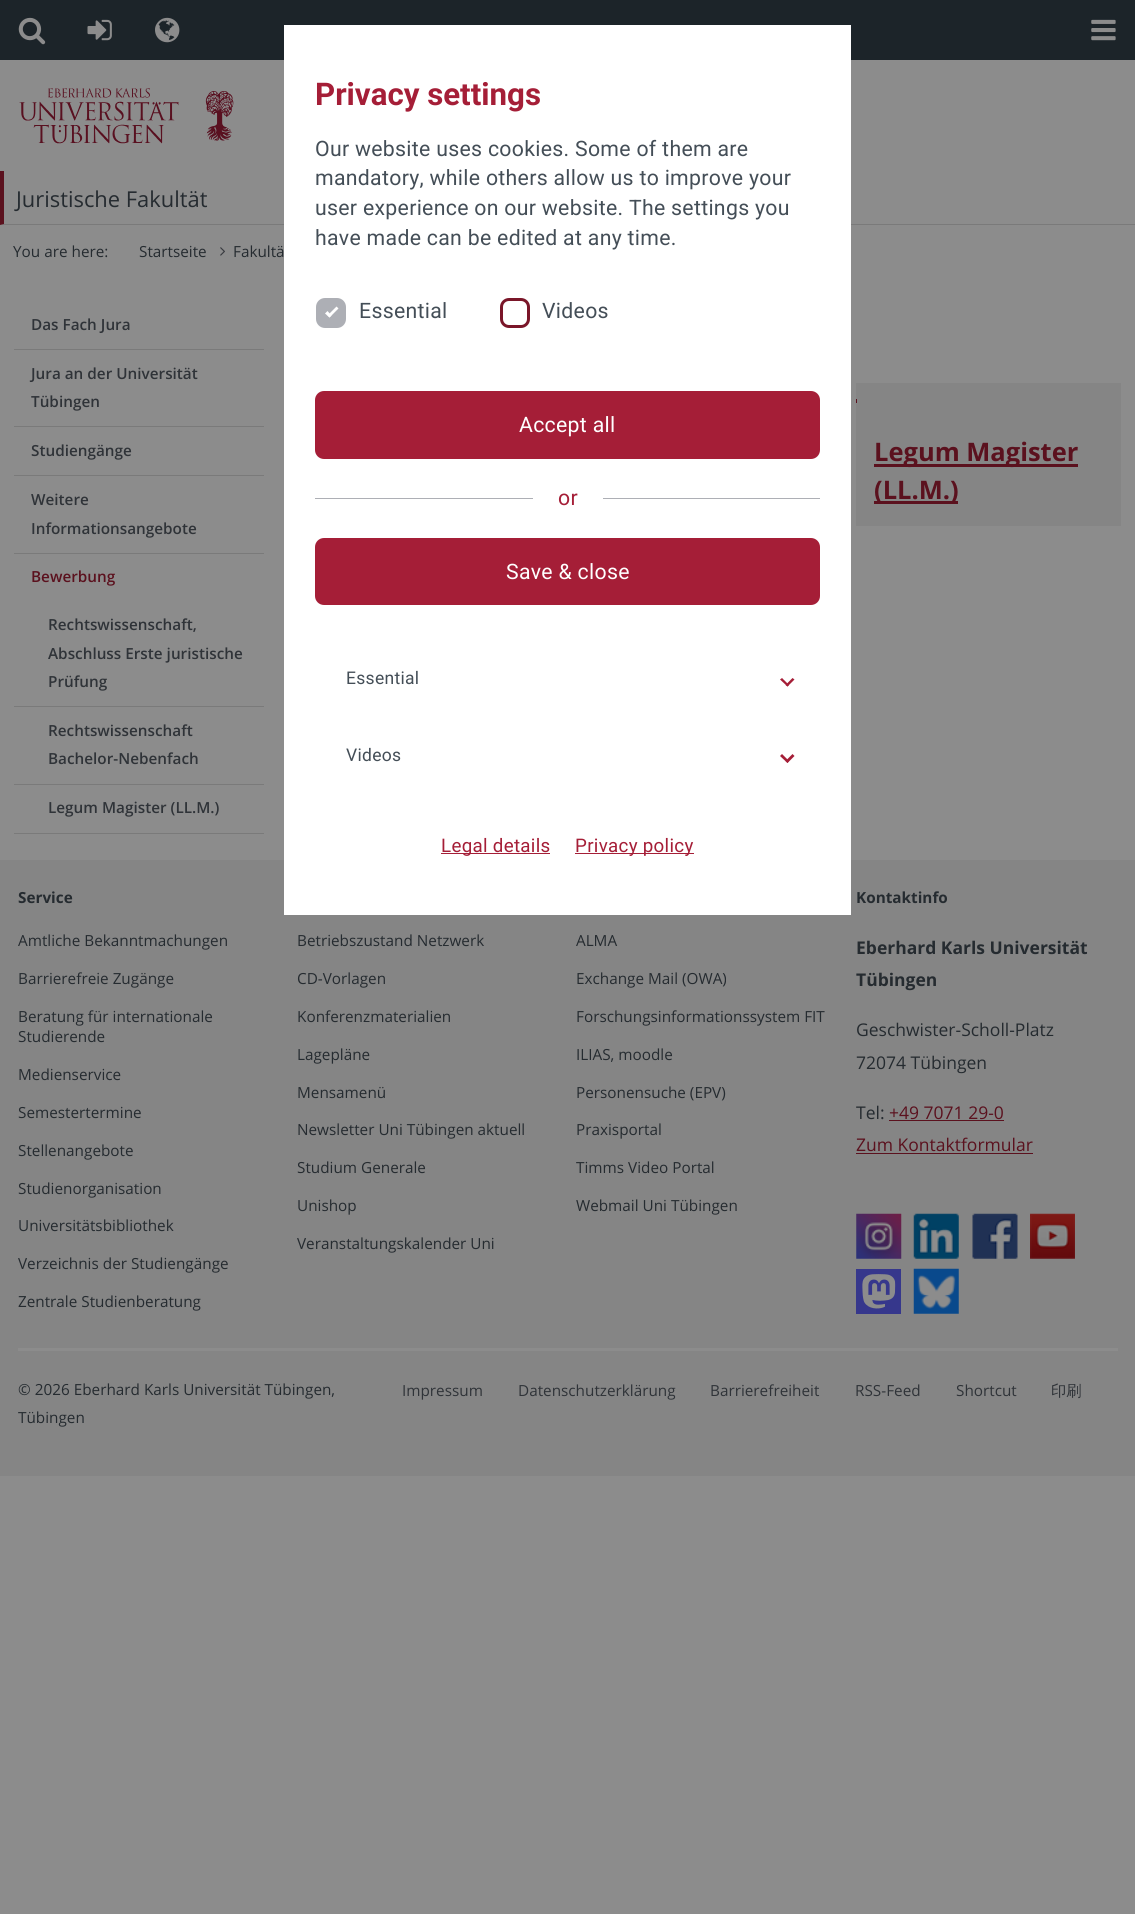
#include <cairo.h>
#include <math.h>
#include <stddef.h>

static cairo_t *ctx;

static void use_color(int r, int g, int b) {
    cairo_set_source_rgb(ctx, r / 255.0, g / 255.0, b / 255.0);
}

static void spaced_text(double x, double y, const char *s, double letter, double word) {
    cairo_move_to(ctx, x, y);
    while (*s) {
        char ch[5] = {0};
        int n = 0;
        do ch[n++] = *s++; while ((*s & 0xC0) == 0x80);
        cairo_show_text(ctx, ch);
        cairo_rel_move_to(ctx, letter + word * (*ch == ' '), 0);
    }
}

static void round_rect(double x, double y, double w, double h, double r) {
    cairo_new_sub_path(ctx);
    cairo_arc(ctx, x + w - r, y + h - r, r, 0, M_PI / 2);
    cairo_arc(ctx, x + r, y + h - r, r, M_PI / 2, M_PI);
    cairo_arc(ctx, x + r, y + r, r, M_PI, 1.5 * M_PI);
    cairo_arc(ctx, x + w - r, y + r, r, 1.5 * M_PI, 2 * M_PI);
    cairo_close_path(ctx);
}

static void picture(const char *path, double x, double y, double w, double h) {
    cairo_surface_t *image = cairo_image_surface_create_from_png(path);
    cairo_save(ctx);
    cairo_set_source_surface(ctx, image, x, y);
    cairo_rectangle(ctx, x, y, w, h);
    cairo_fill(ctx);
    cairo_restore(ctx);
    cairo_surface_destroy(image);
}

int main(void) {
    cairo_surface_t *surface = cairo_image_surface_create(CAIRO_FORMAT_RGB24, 1135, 1914);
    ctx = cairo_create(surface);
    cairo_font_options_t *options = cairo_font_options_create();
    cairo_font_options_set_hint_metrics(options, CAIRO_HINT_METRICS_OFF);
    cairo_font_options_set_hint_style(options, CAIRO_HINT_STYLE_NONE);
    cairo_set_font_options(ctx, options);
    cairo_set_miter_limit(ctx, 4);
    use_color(140, 140, 140);
    cairo_paint(ctx);
    use_color(28, 36, 41);
    cairo_rectangle(ctx, 0, 0, 1135, 60);
    cairo_fill(ctx);
    use_color(122, 122, 122);
    cairo_new_path(ctx);
    cairo_move_to(ctx, 1135, 225);
    cairo_line_to(ctx, 0, 225);
    cairo_line_to(ctx, 4, 224);
    cairo_line_to(ctx, 1135, 224);
    cairo_close_path(ctx);
    cairo_fill(ctx);
    use_color(133, 133, 133);
    cairo_rectangle(ctx, 0, 860, 1135, 616);
    cairo_fill(ctx);
    use_color(255, 255, 255);
    cairo_rectangle(ctx, 284, 25, 567, 890);
    cairo_fill(ctx);
    cairo_select_font_face(ctx, "Roboto", CAIRO_FONT_SLANT_NORMAL, CAIRO_FONT_WEIGHT_BOLD);
    cairo_set_font_size(ctx, 31.25);
    use_color(165, 30, 55);
    cairo_move_to(ctx, 315, 105);
    cairo_show_text(ctx, "Privacy settings");
    cairo_select_font_face(ctx, "Roboto", CAIRO_FONT_SLANT_NORMAL, CAIRO_FONT_WEIGHT_NORMAL);
    cairo_set_font_size(ctx, 21.25);
    use_color(68, 78, 87);
    spaced_text(315, 156, "Our website uses cookies. Some of them are", 0.3, 0);
    spaced_text(315, 185, "mandatory, while others allow us to improve your", 0.3, 0);
    spaced_text(315, 215, "user experience on our website. The settings you", 0.3, 0);
    spaced_text(315, 245, "have made can be edited at any time.", 0.3, 0);
    use_color(173, 175, 181);
    round_rect(317.5, 299.5, 27, 27, 7.5);
    cairo_fill_preserve(ctx);
    cairo_set_line_width(ctx, 3);
    cairo_stroke(ctx);
    use_color(68, 78, 87);
    spaced_text(359, 318, "Essential", 0.3, 0);
    use_color(255, 255, 255);
    cairo_new_path(ctx);
    cairo_move_to(ctx, 327.5, 315.5);
    cairo_line_to(ctx, 336.5, 306.5);
    cairo_line_to(ctx, 338.5, 308.5);
    cairo_line_to(ctx, 329.5, 317.5);
    cairo_close_path(ctx);
    cairo_fill(ctx);
    cairo_new_path(ctx);
    cairo_move_to(ctx, 325, 313.5);
    cairo_line_to(ctx, 327.5, 311);
    cairo_line_to(ctx, 331.5, 315.5);
    cairo_line_to(ctx, 329.5, 317.5);
    cairo_close_path(ctx);
    cairo_fill(ctx);
    round_rect(501.5, 299.5, 27, 27, 7.5);
    use_color(122, 22, 41);
    cairo_stroke(ctx);
    use_color(68, 78, 87);
    spaced_text(542, 318, "Videos", 0.3, 0);
    use_color(165, 30, 55);
    round_rect(315, 391, 505, 68, 9);
    cairo_fill(ctx);
    use_color(255, 255, 255);
    spaced_text(519, 432, "Accept all", 0.3, 0);
    use_color(173, 175, 181);
    cairo_rectangle(ctx, 315, 498, 218, 1);
    cairo_fill(ctx);
    use_color(165, 30, 55);
    spaced_text(558, 505, "or", 0.3, 0);
    use_color(173, 175, 181);
    cairo_rectangle(ctx, 603, 498, 217, 1);
    cairo_fill(ctx);
    use_color(165, 30, 55);
    round_rect(315, 538, 505, 67, 9);
    cairo_fill(ctx);
    use_color(255, 255, 255);
    spaced_text(506, 579, "Save & close", 0.3, 0);
    cairo_set_font_size(ctx, 17.5);
    use_color(68, 78, 87);
    spaced_text(346, 684, "Essential", 0.3, 0);
    use_color(165, 30, 55);
    cairo_new_path(ctx);
    cairo_move_to(ctx, 792.5, 678);
    cairo_line_to(ctx, 794.5, 679.5);
    cairo_line_to(ctx, 787.5, 686.5);
    cairo_line_to(ctx, 785.5, 685);
    cairo_close_path(ctx);
    cairo_fill(ctx);
    cairo_new_path(ctx);
    cairo_move_to(ctx, 782, 678);
    cairo_line_to(ctx, 789, 685);
    cairo_line_to(ctx, 787.5, 686.5);
    cairo_line_to(ctx, 780, 679.5);
    cairo_close_path(ctx);
    cairo_fill(ctx);
    use_color(68, 78, 87);
    spaced_text(346, 761, "Videos", 0.3, 0);
    use_color(165, 30, 55);
    cairo_new_path(ctx);
    cairo_move_to(ctx, 792.5, 754);
    cairo_line_to(ctx, 794.5, 756);
    cairo_line_to(ctx, 787.5, 763);
    cairo_line_to(ctx, 785.5, 761);
    cairo_close_path(ctx);
    cairo_fill(ctx);
    cairo_new_path(ctx);
    cairo_move_to(ctx, 782, 754);
    cairo_line_to(ctx, 789, 761);
    cairo_line_to(ctx, 787.5, 763);
    cairo_line_to(ctx, 780, 756);
    cairo_close_path(ctx);
    cairo_fill(ctx);
    cairo_rectangle(ctx, 441, 853, 109, 1);
    cairo_fill(ctx);
    cairo_set_font_size(ctx, 18.75);
    spaced_text(441, 852, "Legal details", 0.3, 0);
    cairo_rectangle(ctx, 575, 853, 119, 1);
    cairo_fill(ctx);
    spaced_text(575, 852, "Privacy policy", 0.3, 0);
    picture("img1.png", 18, 17, 28, 28);
    picture("img2.png", 87, 19, 25, 22);
    picture("img3.png", 155, 17, 25, 26);
    picture("img4.png", 1091, 19, 25, 22);
    picture("img5.png", 19, 88, 215, 56);
    use_color(91, 17, 30);
    cairo_new_path(ctx);
    cairo_move_to(ctx, 0, 225);
    cairo_line_to(ctx, 0, 171);
    cairo_line_to(ctx, 4, 171);
    cairo_line_to(ctx, 4, 224);
    cairo_close_path(ctx);
    cairo_fill(ctx);
    cairo_select_font_face(ctx, "Open Sans", CAIRO_FONT_SLANT_NORMAL, CAIRO_FONT_WEIGHT_NORMAL);
    cairo_set_font_size(ctx, 21.9);
    use_color(37, 43, 48);
    cairo_move_to(ctx, 16, 207);
    cairo_show_text(ctx, "Juristische Fakultät");
    cairo_set_font_size(ctx, 15.3);
    cairo_move_to(ctx, 13, 257);
    cairo_show_text(ctx, "You are here:");
    cairo_move_to(ctx, 139, 257);
    cairo_show_text(ctx, "Startseite");
    picture("img6.png", 220, 247, 5, 9);
    cairo_move_to(ctx, 233, 257);
    cairo_show_text(ctx, "Fakultä");
    use_color(122, 122, 122);
    cairo_rectangle(ctx, 14, 349, 250, 1);
    cairo_fill(ctx);
    cairo_select_font_face(ctx, "Open Sans SemiBold", CAIRO_FONT_SLANT_NORMAL, CAIRO_FONT_WEIGHT_NORMAL);
    use_color(47, 51, 56);
    cairo_move_to(ctx, 31, 330);
    cairo_show_text(ctx, "Das Fach Jura");
    use_color(122, 122, 122);
    cairo_rectangle(ctx, 14, 426, 250, 1);
    cairo_fill(ctx);
    use_color(47, 51, 56);
    cairo_move_to(ctx, 31, 379);
    cairo_show_text(ctx, "Jura an der Universität");
    cairo_move_to(ctx, 31, 407);
    cairo_show_text(ctx, "Tübingen");
    use_color(122, 122, 122);
    cairo_rectangle(ctx, 14, 475, 250, 1);
    cairo_fill(ctx);
    use_color(47, 51, 56);
    cairo_move_to(ctx, 31, 456);
    cairo_show_text(ctx, "Studiengänge");
    use_color(122, 122, 122);
    cairo_rectangle(ctx, 14, 553, 250, 1);
    cairo_fill(ctx);
    use_color(47, 51, 56);
    cairo_move_to(ctx, 31, 505);
    cairo_show_text(ctx, "Weitere");
    cairo_move_to(ctx, 31, 534);
    cairo_show_text(ctx, "Informationsangebote");
    use_color(91, 17, 30);
    cairo_move_to(ctx, 31, 582);
    cairo_show_text(ctx, "Bewerbung");
    use_color(122, 122, 122);
    cairo_rectangle(ctx, 14, 706, 250, 1);
    cairo_fill(ctx);
    use_color(47, 51, 56);
    cairo_move_to(ctx, 48, 630);
    cairo_show_text(ctx, "Rechtswissenschaft,");
    cairo_move_to(ctx, 48, 659);
    cairo_show_text(ctx, "Abschluss Erste juristische");
    cairo_move_to(ctx, 48, 687);
    cairo_show_text(ctx, "Prüfung");
    use_color(122, 122, 122);
    cairo_rectangle(ctx, 14, 784, 250, 1);
    cairo_fill(ctx);
    use_color(47, 51, 56);
    cairo_move_to(ctx, 48, 736);
    cairo_show_text(ctx, "Rechtswissenschaft");
    cairo_move_to(ctx, 48, 764);
    cairo_show_text(ctx, "Bachelor-Nebenfach");
    use_color(122, 122, 122);
    cairo_rectangle(ctx, 14, 833, 250, 1);
    cairo_fill(ctx);
    use_color(47, 51, 56);
    cairo_move_to(ctx, 48, 813);
    cairo_show_text(ctx, "Legum Magister (LL.M.)");
    use_color(133, 133, 133);
    cairo_rectangle(ctx, 856, 383, 265, 143);
    cairo_fill(ctx);
    use_color(91, 17, 30);
    cairo_rectangle(ctx, 856, 399, 1, 4);
    cairo_fill(ctx);
    cairo_rectangle(ctx, 874, 464, 204, 3);
    cairo_fill(ctx);
    cairo_select_font_face(ctx, "Open Sans", CAIRO_FONT_SLANT_NORMAL, CAIRO_FONT_WEIGHT_BOLD);
    cairo_set_font_size(ctx, 25.5);
    cairo_move_to(ctx, 874, 461);
    cairo_show_text(ctx, "Legum Magister");
    cairo_rectangle(ctx, 874, 501, 84, 3);
    cairo_fill(ctx);
    cairo_move_to(ctx, 874, 499);
    cairo_show_text(ctx, "(LL.M.)");
    cairo_set_font_size(ctx, 15.3);
    use_color(37, 43, 48);
    cairo_move_to(ctx, 18, 903);
    cairo_show_text(ctx, "Service");
    cairo_select_font_face(ctx, "Open Sans", CAIRO_FONT_SLANT_NORMAL, CAIRO_FONT_WEIGHT_NORMAL);
    cairo_move_to(ctx, 18, 946);
    cairo_show_text(ctx, "Amtliche Bekanntmachungen");
    cairo_move_to(ctx, 18, 984);
    cairo_show_text(ctx, "Barrierefreie Zugänge");
    cairo_move_to(ctx, 18, 1022);
    cairo_show_text(ctx, "Beratung für internationale");
    cairo_move_to(ctx, 18, 1042);
    cairo_show_text(ctx, "Studierende");
    cairo_move_to(ctx, 18, 1080);
    cairo_show_text(ctx, "Medienservice");
    cairo_move_to(ctx, 18, 1118);
    cairo_show_text(ctx, "Semestertermine");
    cairo_move_to(ctx, 18, 1156);
    cairo_show_text(ctx, "Stellenangebote");
    cairo_move_to(ctx, 18, 1194);
    cairo_show_text(ctx, "Studienorganisation");
    cairo_move_to(ctx, 18, 1231);
    cairo_show_text(ctx, "Universitätsbibliothek");
    cairo_move_to(ctx, 18, 1269);
    cairo_show_text(ctx, "Verzeichnis der Studiengänge");
    cairo_move_to(ctx, 18, 1307);
    cairo_show_text(ctx, "Zentrale Studienberatung");
    cairo_move_to(ctx, 297, 946);
    cairo_show_text(ctx, "Betriebszustand Netzwerk");
    cairo_move_to(ctx, 297, 984);
    cairo_show_text(ctx, "CD-Vorlagen");
    cairo_move_to(ctx, 297, 1022);
    cairo_show_text(ctx, "Konferenzmaterialien");
    cairo_move_to(ctx, 297, 1060);
    cairo_show_text(ctx, "Lagepläne");
    cairo_move_to(ctx, 297, 1098);
    cairo_show_text(ctx, "Mensamenü");
    cairo_move_to(ctx, 297, 1135);
    cairo_show_text(ctx, "Newsletter Uni Tübingen aktuell");
    cairo_move_to(ctx, 297, 1173);
    cairo_show_text(ctx, "Studium Generale");
    cairo_move_to(ctx, 297, 1211);
    cairo_show_text(ctx, "Unishop");
    cairo_move_to(ctx, 297, 1249);
    cairo_show_text(ctx, "Veranstaltungskalender Uni");
    cairo_move_to(ctx, 576, 946);
    cairo_show_text(ctx, "ALMA");
    cairo_move_to(ctx, 576, 984);
    cairo_show_text(ctx, "Exchange Mail (OWA)");
    cairo_move_to(ctx, 576, 1022);
    cairo_show_text(ctx, "Forschungsinformationssystem FIT");
    cairo_move_to(ctx, 576, 1060);
    cairo_show_text(ctx, "ILIAS, moodle");
    cairo_move_to(ctx, 576, 1098);
    cairo_show_text(ctx, "Personensuche (EPV)");
    cairo_move_to(ctx, 576, 1135);
    cairo_show_text(ctx, "Praxisportal");
    cairo_move_to(ctx, 576, 1173);
    cairo_show_text(ctx, "Timms Video Portal");
    cairo_move_to(ctx, 576, 1211);
    cairo_show_text(ctx, "Webmail Uni Tübingen");
    cairo_select_font_face(ctx, "Open Sans", CAIRO_FONT_SLANT_NORMAL, CAIRO_FONT_WEIGHT_BOLD);
    cairo_move_to(ctx, 856, 903);
    cairo_show_text(ctx, "Kontaktinfo");
    cairo_set_font_size(ctx, 17.5);
    cairo_move_to(ctx, 856, 954);
    cairo_show_text(ctx, "Eberhard Karls Universität");
    cairo_move_to(ctx, 856, 986);
    cairo_show_text(ctx, "Tübingen");
    cairo_select_font_face(ctx, "Open Sans", CAIRO_FONT_SLANT_NORMAL, CAIRO_FONT_WEIGHT_NORMAL);
    cairo_move_to(ctx, 856, 1036);
    cairo_show_text(ctx, "Geschwister-Scholl-Platz");
    cairo_move_to(ctx, 856, 1069);
    cairo_show_text(ctx, "72074 Tübingen");
    cairo_move_to(ctx, 856, 1119);
    cairo_show_text(ctx, "Tel:");
    use_color(91, 17, 30);
    cairo_move_to(ctx, 889, 1119);
    cairo_show_text(ctx, "+49 7071 29-0");
    cairo_rectangle(ctx, 889, 1120, 115, 1);
    cairo_fill(ctx);
    cairo_move_to(ctx, 856, 1151);
    cairo_show_text(ctx, "Zum Kontaktformular");
    cairo_rectangle(ctx, 856, 1153, 177, 1);
    cairo_fill(ctx);
    picture("img7.png", 856, 1213, 46, 46);
    picture("img8.png", 913, 1213, 46, 46);
    picture("img9.png", 972, 1213, 46, 46);
    picture("img10.png", 1030, 1213, 45, 46);
    use_color(54, 55, 140);
    cairo_rectangle(ctx, 856, 1269, 45, 45);
    cairo_fill(ctx);
    picture("img11.png", 862, 1274, 34, 35);
    picture("img12.png", 913, 1268, 46, 46);
    use_color(140, 140, 140);
    cairo_rectangle(ctx, 18, 1348, 1100, 3);
    cairo_fill(ctx);
    cairo_set_font_size(ctx, 15.3);
    use_color(37, 43, 48);
    cairo_move_to(ctx, 18, 1395);
    cairo_show_text(ctx, "© 2026 Eberhard Karls Universität Tübingen,");
    cairo_move_to(ctx, 18, 1423);
    cairo_show_text(ctx, "Tübingen");
    use_color(47, 51, 56);
    cairo_move_to(ctx, 402, 1396);
    cairo_show_text(ctx, "Impressum");
    cairo_move_to(ctx, 518, 1396);
    cairo_show_text(ctx, "Datenschutzerklärung");
    cairo_move_to(ctx, 710, 1396);
    cairo_show_text(ctx, "Barrierefreiheit");
    cairo_move_to(ctx, 855, 1396);
    cairo_show_text(ctx, "RSS-Feed");
    cairo_move_to(ctx, 956, 1396);
    cairo_show_text(ctx, "Shortcut");
    cairo_select_font_face(ctx, "WenQuanYi Zen Hei Medium", CAIRO_FONT_SLANT_NORMAL, CAIRO_FONT_WEIGHT_NORMAL);
    cairo_move_to(ctx, 1051, 1396);
    cairo_show_text(ctx, "印刷");
    cairo_surface_write_to_png(surface, "result.png");
    cairo_font_options_destroy(options);
    cairo_destroy(ctx);
    cairo_surface_destroy(surface);
    return 0;
}
